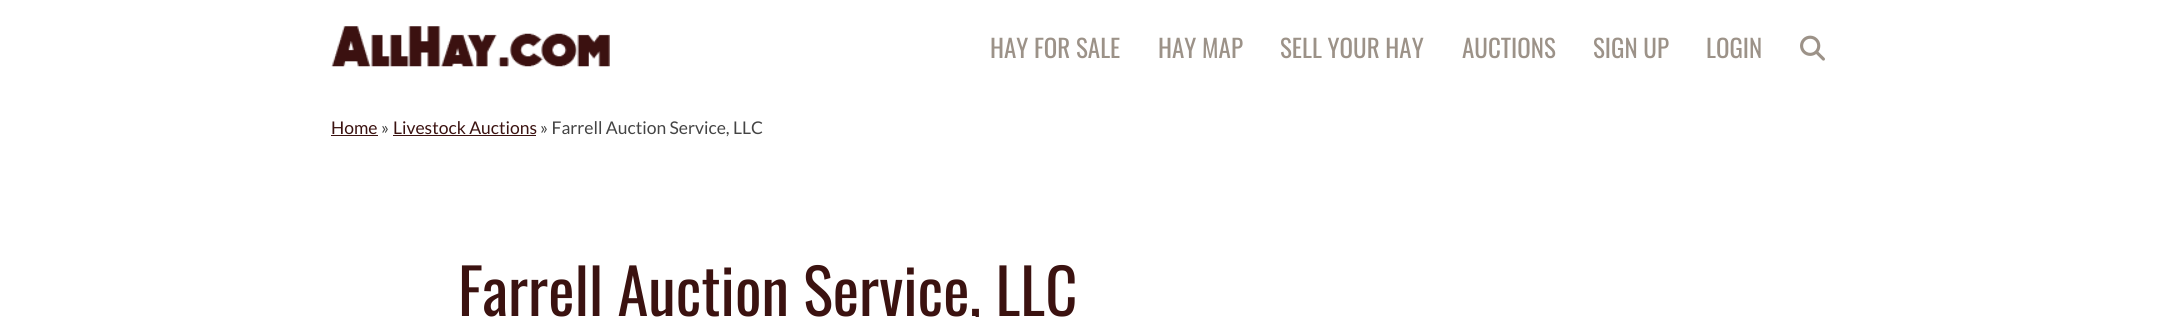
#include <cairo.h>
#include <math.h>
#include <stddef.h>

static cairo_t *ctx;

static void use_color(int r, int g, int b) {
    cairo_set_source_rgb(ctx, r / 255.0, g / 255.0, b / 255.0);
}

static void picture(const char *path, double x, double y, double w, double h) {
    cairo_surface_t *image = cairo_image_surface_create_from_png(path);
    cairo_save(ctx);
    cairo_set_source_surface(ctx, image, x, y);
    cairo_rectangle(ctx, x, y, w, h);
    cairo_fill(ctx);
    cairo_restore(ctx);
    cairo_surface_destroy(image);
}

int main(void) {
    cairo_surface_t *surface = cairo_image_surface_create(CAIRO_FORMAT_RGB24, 2174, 317);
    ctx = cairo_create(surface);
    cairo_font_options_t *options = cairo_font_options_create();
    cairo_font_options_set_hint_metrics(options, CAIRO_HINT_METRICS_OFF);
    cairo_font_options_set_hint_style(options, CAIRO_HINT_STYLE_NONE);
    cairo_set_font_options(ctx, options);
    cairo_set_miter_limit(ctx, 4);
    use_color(255, 255, 255);
    cairo_paint(ctx);
    picture("img1.png", 331, 26, 279, 41);
    cairo_select_font_face(ctx, "Oswald", CAIRO_FONT_SLANT_NORMAL, CAIRO_FONT_WEIGHT_NORMAL);
    cairo_set_font_size(ctx, 25);
    use_color(156, 146, 136);
    cairo_move_to(ctx, 990, 58);
    cairo_show_text(ctx, "HAY FOR SALE");
    cairo_move_to(ctx, 1158, 58);
    cairo_show_text(ctx, "HAY MAP");
    cairo_move_to(ctx, 1280, 58);
    cairo_show_text(ctx, "SELL YOUR HAY");
    cairo_move_to(ctx, 1462, 58);
    cairo_show_text(ctx, "AUCTIONS");
    cairo_move_to(ctx, 1593, 58);
    cairo_show_text(ctx, "SIGN UP");
    cairo_move_to(ctx, 1706, 58);
    cairo_show_text(ctx, "LOGIN");
    picture("img2.png", 1800, 35, 25, 26);
    cairo_select_font_face(ctx, "Lato", CAIRO_FONT_SLANT_NORMAL, CAIRO_FONT_WEIGHT_NORMAL);
    cairo_set_font_size(ctx, 17.5);
    use_color(59, 18, 16);
    cairo_move_to(ctx, 331, 134);
    cairo_show_text(ctx, "Home");
    cairo_rectangle(ctx, 331, 135, 47, 1);
    cairo_fill(ctx);
    use_color(68, 68, 68);
    cairo_move_to(ctx, 381, 134);
    cairo_show_text(ctx, "»");
    use_color(59, 18, 16);
    cairo_move_to(ctx, 393, 134);
    cairo_show_text(ctx, "Livestock Auctions");
    cairo_rectangle(ctx, 393, 135, 143, 1);
    cairo_fill(ctx);
    use_color(68, 68, 68);
    cairo_move_to(ctx, 540, 134);
    cairo_show_text(ctx, "» Farrell Auction Service, LLC");
    cairo_select_font_face(ctx, "Oswald", CAIRO_FONT_SLANT_NORMAL, CAIRO_FONT_WEIGHT_NORMAL);
    cairo_set_font_size(ctx, 62.5);
    use_color(59, 18, 16);
    cairo_move_to(ctx, 458, 316);
    cairo_show_text(ctx, "Farrell Auction Service, LLC");
    cairo_surface_write_to_png(surface, "result.png");
    cairo_font_options_destroy(options);
    cairo_destroy(ctx);
    cairo_surface_destroy(surface);
    return 0;
}
